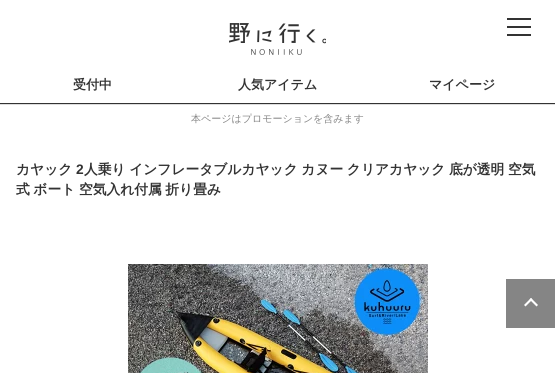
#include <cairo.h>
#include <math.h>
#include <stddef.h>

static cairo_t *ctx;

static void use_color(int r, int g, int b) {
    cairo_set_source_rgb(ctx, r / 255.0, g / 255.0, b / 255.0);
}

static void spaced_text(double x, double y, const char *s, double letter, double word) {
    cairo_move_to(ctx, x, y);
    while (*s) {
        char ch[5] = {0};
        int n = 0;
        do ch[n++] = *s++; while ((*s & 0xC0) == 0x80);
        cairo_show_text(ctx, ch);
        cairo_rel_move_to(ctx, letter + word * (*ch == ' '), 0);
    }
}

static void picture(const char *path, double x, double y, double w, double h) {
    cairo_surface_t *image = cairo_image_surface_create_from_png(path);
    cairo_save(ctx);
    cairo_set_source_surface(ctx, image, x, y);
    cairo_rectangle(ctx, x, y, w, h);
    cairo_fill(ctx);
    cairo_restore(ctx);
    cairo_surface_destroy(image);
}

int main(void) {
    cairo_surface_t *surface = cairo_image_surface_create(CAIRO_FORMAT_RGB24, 555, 373);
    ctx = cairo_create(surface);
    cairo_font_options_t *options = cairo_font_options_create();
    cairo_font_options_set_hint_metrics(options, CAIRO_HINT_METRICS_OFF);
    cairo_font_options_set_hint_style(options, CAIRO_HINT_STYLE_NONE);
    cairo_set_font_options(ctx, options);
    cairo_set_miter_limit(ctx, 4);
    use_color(255, 255, 255);
    cairo_paint(ctx);
    picture("img1.png", 229, 23, 97, 32);
    use_color(51, 51, 51);
    cairo_rectangle(ctx, 507, 18, 24, 2);
    cairo_fill(ctx);
    cairo_rectangle(ctx, 507, 26, 24, 2);
    cairo_fill(ctx);
    cairo_rectangle(ctx, 507, 34, 24, 2);
    cairo_fill(ctx);
    use_color(221, 221, 221);
    cairo_rectangle(ctx, 0, 104, 555, 1);
    cairo_fill(ctx);
    use_color(51, 51, 51);
    cairo_rectangle(ctx, 0, 103, 555, 1);
    cairo_fill(ctx);
    cairo_select_font_face(ctx, "WenQuanYi Zen Hei", CAIRO_FONT_SLANT_NORMAL, CAIRO_FONT_WEIGHT_BOLD);
    cairo_set_font_size(ctx, 13);
    cairo_move_to(ctx, 73, 89);
    cairo_show_text(ctx, "受付中");
    cairo_move_to(ctx, 238, 89);
    cairo_show_text(ctx, "人気アイテム");
    cairo_move_to(ctx, 429, 89);
    cairo_show_text(ctx, "マイページ");
    cairo_select_font_face(ctx, "WenQuanYi Zen Hei Medium", CAIRO_FONT_SLANT_NORMAL, CAIRO_FONT_WEIGHT_NORMAL);
    cairo_set_font_size(ctx, 10);
    use_color(134, 134, 134);
    cairo_move_to(ctx, 191, 122);
    cairo_show_text(ctx, "本ページはプロモーションを含みます");
    cairo_select_font_face(ctx, "WenQuanYi Zen Hei", CAIRO_FONT_SLANT_NORMAL, CAIRO_FONT_WEIGHT_BOLD);
    cairo_set_font_size(ctx, 13.75);
    use_color(51, 51, 51);
    cairo_move_to(ctx, 16, 174);
    cairo_show_text(ctx, "カヤック");
    cairo_select_font_face(ctx, "Liberation Sans", CAIRO_FONT_SLANT_NORMAL, CAIRO_FONT_WEIGHT_BOLD);
    cairo_move_to(ctx, 76, 174);
    cairo_show_text(ctx, "2");
    cairo_select_font_face(ctx, "WenQuanYi Zen Hei", CAIRO_FONT_SLANT_NORMAL, CAIRO_FONT_WEIGHT_BOLD);
    spaced_text(84, 174, "人乗り インフレータブルカヤック カヌー クリアカヤック 底が透明 空気", 0, -0.5);
    spaced_text(16, 194, "式 ボート 空気入れ付属 折り畳み", 0, -0.5);
    picture("img2.png", 128, 264, 300, 109);
    use_color(133, 133, 133);
    cairo_rectangle(ctx, 506, 279, 49, 49);
    cairo_fill(ctx);
    use_color(255, 255, 255);
    cairo_new_path(ctx);
    cairo_move_to(ctx, 531, 298);
    cairo_line_to(ctx, 538, 305);
    cairo_line_to(ctx, 536.5, 306.5);
    cairo_line_to(ctx, 529.5, 299.5);
    cairo_close_path(ctx);
    cairo_fill(ctx);
    cairo_new_path(ctx);
    cairo_move_to(ctx, 531, 298);
    cairo_line_to(ctx, 532.5, 299.5);
    cairo_line_to(ctx, 525.5, 306.5);
    cairo_line_to(ctx, 524, 305);
    cairo_close_path(ctx);
    cairo_fill(ctx);
    cairo_surface_write_to_png(surface, "result.png");
    cairo_font_options_destroy(options);
    cairo_destroy(ctx);
    cairo_surface_destroy(surface);
    return 0;
}
